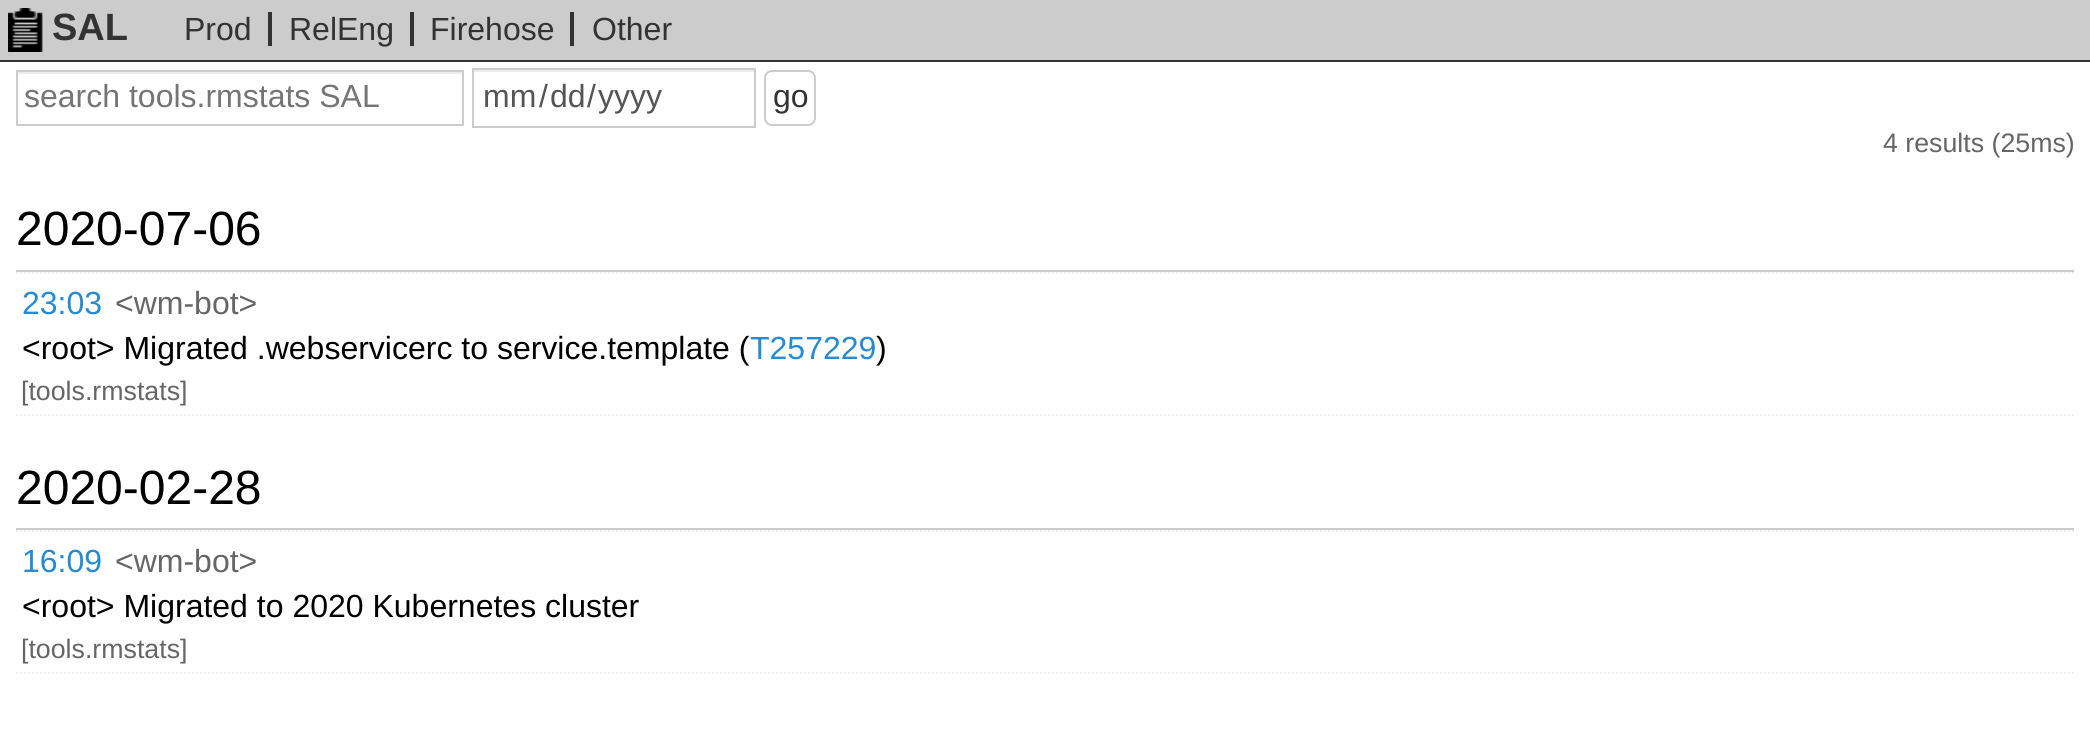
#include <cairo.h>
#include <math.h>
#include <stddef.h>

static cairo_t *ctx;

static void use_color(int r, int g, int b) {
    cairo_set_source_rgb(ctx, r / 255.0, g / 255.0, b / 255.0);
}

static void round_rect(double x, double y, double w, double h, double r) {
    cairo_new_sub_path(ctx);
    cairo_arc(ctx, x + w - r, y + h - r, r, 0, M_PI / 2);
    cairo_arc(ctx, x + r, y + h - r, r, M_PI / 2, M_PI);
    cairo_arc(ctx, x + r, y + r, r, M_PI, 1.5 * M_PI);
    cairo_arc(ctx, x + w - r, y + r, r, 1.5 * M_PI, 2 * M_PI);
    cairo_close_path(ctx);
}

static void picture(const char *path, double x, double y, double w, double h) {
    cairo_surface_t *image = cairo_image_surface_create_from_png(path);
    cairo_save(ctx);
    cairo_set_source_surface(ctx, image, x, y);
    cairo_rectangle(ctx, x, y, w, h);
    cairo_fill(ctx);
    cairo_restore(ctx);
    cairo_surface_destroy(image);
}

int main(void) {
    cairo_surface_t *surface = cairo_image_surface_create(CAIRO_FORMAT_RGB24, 2090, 733);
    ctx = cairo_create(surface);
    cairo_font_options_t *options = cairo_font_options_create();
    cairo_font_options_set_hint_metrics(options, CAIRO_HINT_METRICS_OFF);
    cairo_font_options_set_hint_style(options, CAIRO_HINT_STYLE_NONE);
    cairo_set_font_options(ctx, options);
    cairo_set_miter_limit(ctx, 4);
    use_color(255, 255, 255);
    cairo_paint(ctx);
    use_color(204, 204, 204);
    cairo_rectangle(ctx, 0, 0, 2090, 60);
    cairo_fill(ctx);
    use_color(51, 51, 51);
    cairo_rectangle(ctx, 0, 60, 2090, 2);
    cairo_fill(ctx);
    picture("img1.png", 8, 8, 35, 44);
    cairo_select_font_face(ctx, "Liberation Sans", CAIRO_FONT_SLANT_NORMAL, CAIRO_FONT_WEIGHT_BOLD);
    cairo_set_font_size(ctx, 38);
    cairo_move_to(ctx, 52, 40);
    cairo_show_text(ctx, "SAL");
    cairo_select_font_face(ctx, "Liberation Sans", CAIRO_FONT_SLANT_NORMAL, CAIRO_FONT_WEIGHT_NORMAL);
    cairo_set_font_size(ctx, 32);
    cairo_move_to(ctx, 184, 40);
    cairo_show_text(ctx, "Prod");
    cairo_rectangle(ctx, 268, 12, 4, 34);
    cairo_fill(ctx);
    cairo_move_to(ctx, 289, 40);
    cairo_show_text(ctx, "RelEng");
    cairo_move_to(ctx, 430, 40);
    cairo_show_text(ctx, "Firehose");
    cairo_rectangle(ctx, 410, 12, 4, 34);
    cairo_fill(ctx);
    cairo_rectangle(ctx, 570, 12, 4, 34);
    cairo_fill(ctx);
    cairo_move_to(ctx, 592, 40);
    cairo_show_text(ctx, "Other");
    use_color(236, 236, 236);
    cairo_rectangle(ctx, 18, 72, 444, 2);
    cairo_fill(ctx);
    cairo_rectangle(ctx, 17, 71, 446, 54);
    use_color(204, 204, 204);
    cairo_stroke(ctx);
    use_color(117, 117, 117);
    cairo_move_to(ctx, 24, 107);
    cairo_show_text(ctx, "search tools.rmstats SAL");
    use_color(236, 236, 236);
    cairo_rectangle(ctx, 474, 70, 280, 2);
    cairo_fill(ctx);
    cairo_rectangle(ctx, 473, 69, 282, 58);
    use_color(204, 204, 204);
    cairo_stroke(ctx);
    use_color(85, 85, 85);
    cairo_move_to(ctx, 483, 107);
    cairo_show_text(ctx, "mm");
    cairo_move_to(ctx, 539, 107);
    cairo_show_text(ctx, "/");
    cairo_move_to(ctx, 550, 107);
    cairo_show_text(ctx, "dd");
    cairo_move_to(ctx, 587, 107);
    cairo_show_text(ctx, "/");
    cairo_move_to(ctx, 598, 107);
    cairo_show_text(ctx, "yyyy");
    round_rect(765, 71, 50, 54, 7);
    use_color(204, 204, 204);
    cairo_stroke(ctx);
    use_color(51, 51, 51);
    cairo_move_to(ctx, 773, 107);
    cairo_show_text(ctx, "go");
    cairo_set_font_size(ctx, 26.75);
    use_color(102, 102, 102);
    cairo_move_to(ctx, 1883, 152);
    cairo_show_text(ctx, "4 results (25ms)");
    cairo_new_path(ctx);
    cairo_move_to(ctx, 16, 273);
    cairo_line_to(ctx, 2074, 273);
    use_color(238, 238, 238);
    cairo_set_dash(ctx, (double[]){2, 2}, 2, 0);
    cairo_stroke(ctx);
    use_color(204, 204, 204);
    cairo_rectangle(ctx, 16, 270, 2058, 2);
    cairo_fill(ctx);
    cairo_set_font_size(ctx, 48);
    use_color(0, 0, 0);
    cairo_move_to(ctx, 16, 245);
    cairo_show_text(ctx, "2020-07-06");
    cairo_new_path(ctx);
    cairo_move_to(ctx, 16, 415);
    cairo_line_to(ctx, 2074, 415);
    use_color(238, 238, 238);
    cairo_stroke(ctx);
    cairo_set_font_size(ctx, 32);
    use_color(38, 139, 210);
    cairo_move_to(ctx, 22, 314);
    cairo_show_text(ctx, "23:03");
    use_color(102, 102, 102);
    cairo_move_to(ctx, 115, 314);
    cairo_show_text(ctx, "<wm-bot>");
    use_color(0, 0, 0);
    cairo_move_to(ctx, 22, 359);
    cairo_show_text(ctx, "<root> Migrated .webservicerc to service.template (");
    use_color(38, 139, 210);
    cairo_move_to(ctx, 750, 359);
    cairo_show_text(ctx, "T257229");
    use_color(0, 0, 0);
    cairo_move_to(ctx, 876, 359);
    cairo_show_text(ctx, ")");
    cairo_set_font_size(ctx, 26.75);
    use_color(102, 102, 102);
    cairo_move_to(ctx, 21, 400);
    cairo_show_text(ctx, "[tools.rmstats]");
    cairo_new_path(ctx);
    cairo_move_to(ctx, 16, 531);
    cairo_line_to(ctx, 2074, 531);
    use_color(238, 238, 238);
    cairo_stroke(ctx);
    use_color(204, 204, 204);
    cairo_rectangle(ctx, 16, 528, 2058, 2);
    cairo_fill(ctx);
    cairo_set_font_size(ctx, 48);
    use_color(0, 0, 0);
    cairo_move_to(ctx, 16, 504);
    cairo_show_text(ctx, "2020-02-28");
    cairo_new_path(ctx);
    cairo_move_to(ctx, 16, 673);
    cairo_line_to(ctx, 2074, 673);
    use_color(238, 238, 238);
    cairo_stroke(ctx);
    cairo_set_font_size(ctx, 32);
    use_color(38, 139, 210);
    cairo_move_to(ctx, 22, 572);
    cairo_show_text(ctx, "16:09");
    use_color(102, 102, 102);
    cairo_move_to(ctx, 115, 572);
    cairo_show_text(ctx, "<wm-bot>");
    use_color(0, 0, 0);
    cairo_move_to(ctx, 22, 617);
    cairo_show_text(ctx, "<root> Migrated to 2020 Kubernetes cluster");
    cairo_set_font_size(ctx, 26.75);
    use_color(102, 102, 102);
    cairo_move_to(ctx, 21, 658);
    cairo_show_text(ctx, "[tools.rmstats]");
    cairo_surface_write_to_png(surface, "result.png");
    cairo_font_options_destroy(options);
    cairo_destroy(ctx);
    cairo_surface_destroy(surface);
    return 0;
}
